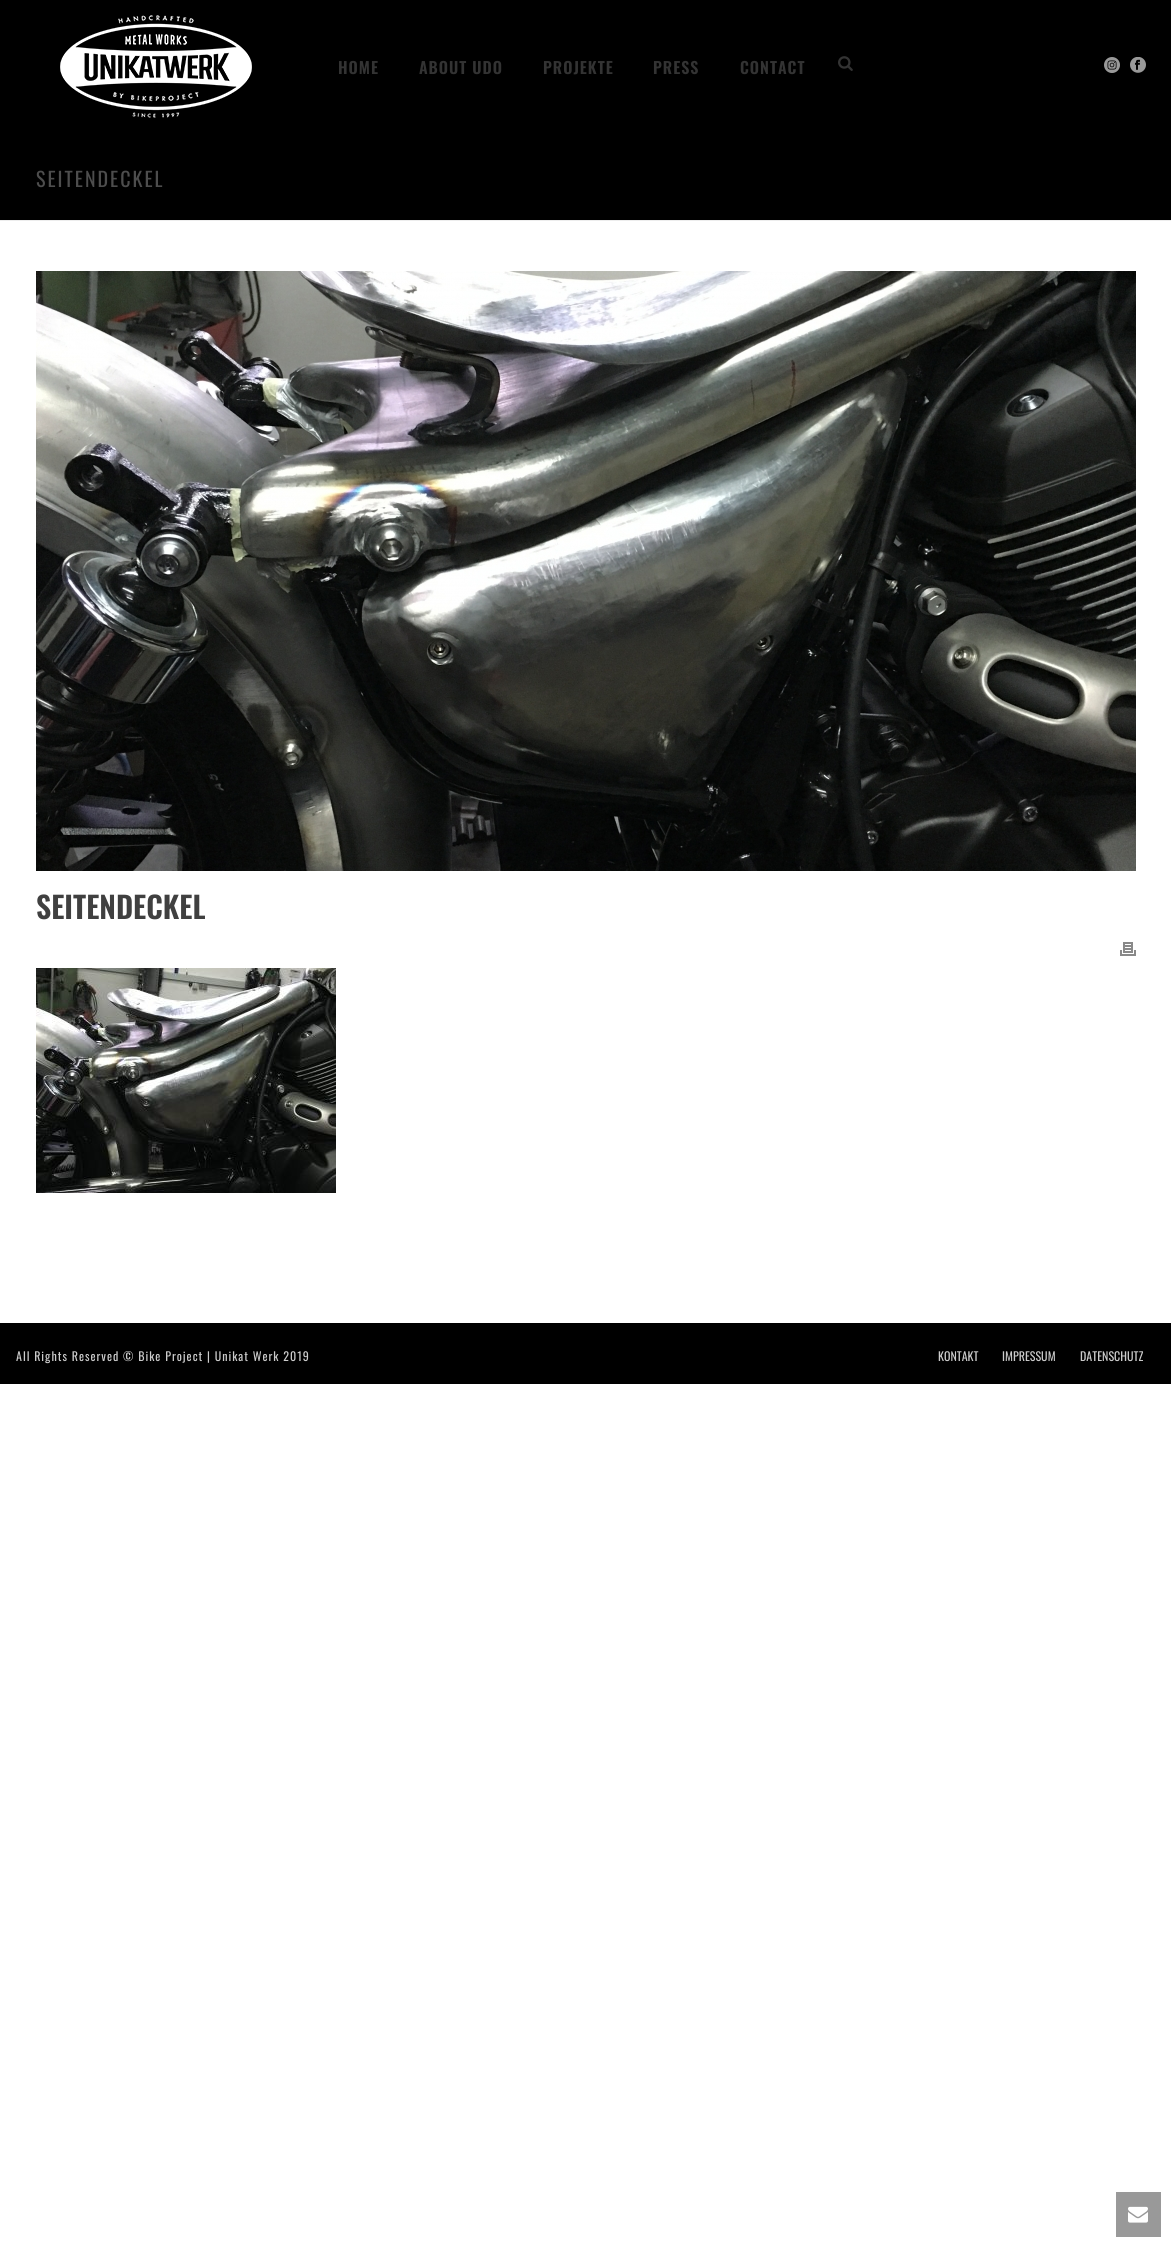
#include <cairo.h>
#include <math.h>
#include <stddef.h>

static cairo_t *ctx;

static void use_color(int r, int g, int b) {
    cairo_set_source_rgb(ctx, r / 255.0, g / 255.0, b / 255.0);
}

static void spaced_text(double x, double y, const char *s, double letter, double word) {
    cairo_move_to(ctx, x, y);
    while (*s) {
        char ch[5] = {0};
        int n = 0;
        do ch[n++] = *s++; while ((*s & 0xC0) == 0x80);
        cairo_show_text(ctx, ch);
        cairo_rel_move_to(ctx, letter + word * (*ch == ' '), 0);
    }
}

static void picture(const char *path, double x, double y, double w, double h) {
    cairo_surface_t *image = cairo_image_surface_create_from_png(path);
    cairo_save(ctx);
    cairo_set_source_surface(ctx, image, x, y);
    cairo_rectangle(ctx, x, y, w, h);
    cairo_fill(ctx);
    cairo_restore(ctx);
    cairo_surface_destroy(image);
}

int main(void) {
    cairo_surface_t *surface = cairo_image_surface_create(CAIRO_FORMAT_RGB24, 1171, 2252);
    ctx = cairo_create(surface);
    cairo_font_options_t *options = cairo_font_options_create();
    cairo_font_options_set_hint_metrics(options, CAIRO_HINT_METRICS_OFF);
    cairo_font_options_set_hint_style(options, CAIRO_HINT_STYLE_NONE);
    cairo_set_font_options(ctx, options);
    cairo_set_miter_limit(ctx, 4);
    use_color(255, 255, 255);
    cairo_paint(ctx);
    use_color(0, 0, 0);
    cairo_rectangle(ctx, 0, 0, 1171, 220);
    cairo_fill(ctx);
    use_color(237, 237, 237);
    cairo_rectangle(ctx, 0, 220, 1171, 1);
    cairo_fill(ctx);
    picture("img1.png", 60, 15, 192, 103);
    cairo_select_font_face(ctx, "Oswald SemiBold", CAIRO_FONT_SLANT_NORMAL, CAIRO_FONT_WEIGHT_NORMAL);
    cairo_set_font_size(ctx, 16);
    use_color(51, 51, 51);
    spaced_text(338, 74, "HOME", 1, 0);
    spaced_text(419, 74, "ABOUT UDO", 1, 0);
    spaced_text(543, 74, "PROJEKTE", 1, 0);
    spaced_text(653, 74, "PRESS", 1, 0);
    spaced_text(740, 74, "CONTACT", 1, 0);
    picture("img2.png", 838, 56, 15, 15);
    picture("img3.png", 1104, 57, 16, 16);
    picture("img4.png", 1130, 57, 16, 16);
    cairo_select_font_face(ctx, "Oswald", CAIRO_FONT_SLANT_NORMAL, CAIRO_FONT_WEIGHT_NORMAL);
    cairo_set_font_size(ctx, 20);
    use_color(77, 77, 77);
    spaced_text(36, 187, "SEITENDECKEL", 2, 0);
    picture("img5.png", 36, 271, 1100, 600);
    cairo_select_font_face(ctx, "Oswald SemiBold", CAIRO_FONT_SLANT_NORMAL, CAIRO_FONT_WEIGHT_NORMAL);
    cairo_set_font_size(ctx, 30);
    use_color(64, 64, 64);
    cairo_move_to(ctx, 36, 919);
    cairo_show_text(ctx, "SEITENDECKEL");
    picture("img6.png", 1120, 942, 16, 14);
    picture("img7.png", 36, 968, 300, 225);
    use_color(0, 0, 0);
    cairo_rectangle(ctx, 0, 1323, 1171, 61);
    cairo_fill(ctx);
    cairo_select_font_face(ctx, "Oswald", CAIRO_FONT_SLANT_NORMAL, CAIRO_FONT_WEIGHT_NORMAL);
    cairo_set_font_size(ctx, 12);
    use_color(204, 204, 204);
    spaced_text(16, 1361, "All Rights Reserved © Bike Project | Unikat Werk 2019", 1, 0);
    cairo_move_to(ctx, 938, 1361);
    cairo_show_text(ctx, "KONTAKT");
    cairo_move_to(ctx, 1002, 1361);
    cairo_show_text(ctx, "IMPRESSUM");
    cairo_move_to(ctx, 1080, 1361);
    cairo_show_text(ctx, "DATENSCHUTZ");
    use_color(153, 153, 153);
    cairo_rectangle(ctx, 1116, 2192, 45, 45);
    cairo_fill(ctx);
    picture("img8.png", 1128, 2206, 20, 17);
    cairo_surface_write_to_png(surface, "result.png");
    cairo_font_options_destroy(options);
    cairo_destroy(ctx);
    cairo_surface_destroy(surface);
    return 0;
}
